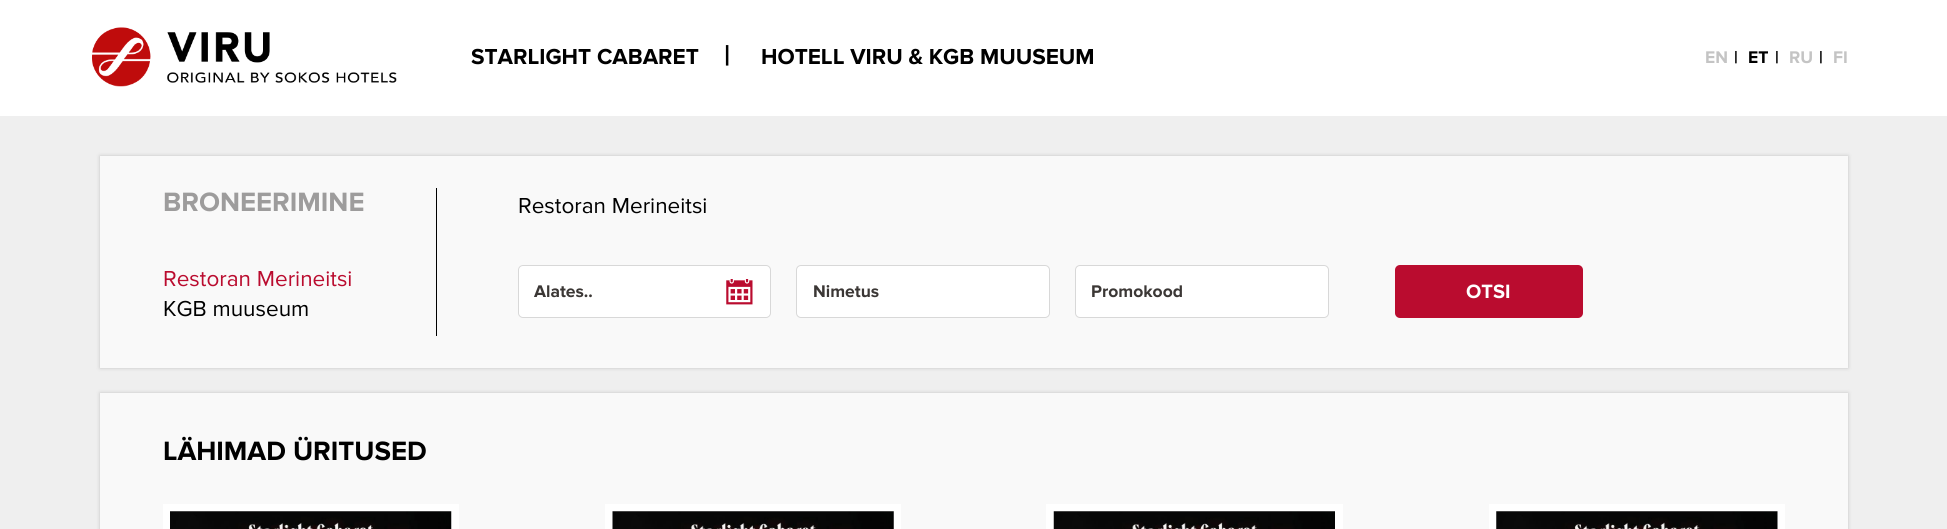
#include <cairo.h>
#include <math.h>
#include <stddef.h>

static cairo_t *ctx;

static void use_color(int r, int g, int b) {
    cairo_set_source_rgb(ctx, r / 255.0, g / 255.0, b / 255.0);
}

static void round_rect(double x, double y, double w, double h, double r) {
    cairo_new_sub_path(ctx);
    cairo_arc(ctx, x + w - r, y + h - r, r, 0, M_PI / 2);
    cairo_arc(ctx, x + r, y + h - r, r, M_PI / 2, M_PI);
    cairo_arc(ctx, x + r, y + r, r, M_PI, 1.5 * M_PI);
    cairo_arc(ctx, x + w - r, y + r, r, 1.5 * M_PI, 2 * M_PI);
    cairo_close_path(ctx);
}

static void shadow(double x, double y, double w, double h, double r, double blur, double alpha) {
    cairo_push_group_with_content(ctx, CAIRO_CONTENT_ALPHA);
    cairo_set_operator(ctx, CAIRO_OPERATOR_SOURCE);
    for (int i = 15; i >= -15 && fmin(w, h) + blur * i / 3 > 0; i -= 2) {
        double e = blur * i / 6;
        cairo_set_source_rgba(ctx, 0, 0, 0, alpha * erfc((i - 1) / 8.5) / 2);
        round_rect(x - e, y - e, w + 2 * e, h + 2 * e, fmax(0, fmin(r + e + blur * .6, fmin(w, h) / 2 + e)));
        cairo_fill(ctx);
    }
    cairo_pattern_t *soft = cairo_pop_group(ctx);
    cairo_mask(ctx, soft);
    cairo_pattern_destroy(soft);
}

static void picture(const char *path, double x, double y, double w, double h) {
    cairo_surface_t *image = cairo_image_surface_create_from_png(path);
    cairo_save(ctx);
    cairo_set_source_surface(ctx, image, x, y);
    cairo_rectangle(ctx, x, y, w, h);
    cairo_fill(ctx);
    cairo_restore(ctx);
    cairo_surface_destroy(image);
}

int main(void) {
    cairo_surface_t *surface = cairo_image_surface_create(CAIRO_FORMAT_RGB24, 1947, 529);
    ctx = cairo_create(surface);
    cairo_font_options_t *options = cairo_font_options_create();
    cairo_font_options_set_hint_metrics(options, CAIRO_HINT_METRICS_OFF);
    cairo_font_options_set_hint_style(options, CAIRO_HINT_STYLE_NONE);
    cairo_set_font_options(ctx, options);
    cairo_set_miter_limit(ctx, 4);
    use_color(239, 239, 239);
    cairo_paint(ctx);
    use_color(255, 255, 255);
    cairo_rectangle(ctx, 0, 0, 1947, 116);
    cairo_fill(ctx);
    picture("img1.png", 92, 27, 305, 60);
    cairo_select_font_face(ctx, "Proxima Nova", CAIRO_FONT_SLANT_NORMAL, CAIRO_FONT_WEIGHT_BOLD);
    cairo_set_font_size(ctx, 22.5);
    use_color(0, 0, 0);
    cairo_move_to(ctx, 471, 64);
    cairo_show_text(ctx, "STARLIGHT CABARET");
    cairo_set_font_size(ctx, 29);
    cairo_move_to(ctx, 724, 65);
    cairo_show_text(ctx, "|");
    cairo_set_font_size(ctx, 22.5);
    cairo_move_to(ctx, 761, 64);
    cairo_show_text(ctx, "HOTELL VIRU & KGB MUUSEUM");
    cairo_set_font_size(ctx, 17.5);
    use_color(196, 196, 196);
    cairo_move_to(ctx, 1705, 63);
    cairo_show_text(ctx, "EN");
    use_color(0, 0, 0);
    cairo_move_to(ctx, 1734, 63);
    cairo_show_text(ctx, "|");
    cairo_move_to(ctx, 1748, 63);
    cairo_show_text(ctx, "ET");
    cairo_move_to(ctx, 1775, 63);
    cairo_show_text(ctx, "|");
    use_color(196, 196, 196);
    cairo_move_to(ctx, 1789, 63);
    cairo_show_text(ctx, "RU");
    use_color(0, 0, 0);
    cairo_move_to(ctx, 1819, 63);
    cairo_show_text(ctx, "|");
    use_color(196, 196, 196);
    cairo_move_to(ctx, 1833, 63);
    cairo_show_text(ctx, "FI");
    use_color(0, 0, 0);
    shadow(100, 156, 1748, 212, 0, 2, 0.19);
    use_color(249, 249, 249);
    cairo_rectangle(ctx, 100, 156, 1748, 212);
    cairo_fill(ctx);
    use_color(0, 0, 0);
    cairo_rectangle(ctx, 436, 188, 1, 148);
    cairo_fill(ctx);
    cairo_set_font_size(ctx, 27.5);
    use_color(157, 156, 156);
    cairo_move_to(ctx, 163, 211);
    cairo_show_text(ctx, "BRONEERIMINE");
    cairo_select_font_face(ctx, "Proxima Nova", CAIRO_FONT_SLANT_NORMAL, CAIRO_FONT_WEIGHT_NORMAL);
    cairo_set_font_size(ctx, 22.5);
    use_color(186, 12, 47);
    cairo_move_to(ctx, 163, 286);
    cairo_show_text(ctx, "Restoran Merineitsi");
    use_color(0, 0, 0);
    cairo_move_to(ctx, 163, 316);
    cairo_show_text(ctx, "KGB muuseum");
    cairo_move_to(ctx, 518, 213);
    cairo_show_text(ctx, "Restoran Merineitsi");
    use_color(255, 255, 255);
    round_rect(518, 265, 253, 53, 5);
    cairo_fill(ctx);
    picture("img2.png", 726, 279, 27, 26);
    round_rect(518.5, 265.5, 252, 52, 4.5);
    use_color(216, 216, 216);
    cairo_set_line_width(ctx, 1);
    cairo_stroke(ctx);
    cairo_select_font_face(ctx, "Proxima Nova", CAIRO_FONT_SLANT_NORMAL, CAIRO_FONT_WEIGHT_BOLD);
    cairo_set_font_size(ctx, 17.5);
    use_color(59, 55, 53);
    cairo_move_to(ctx, 534, 297);
    cairo_show_text(ctx, "Alates..");
    use_color(255, 255, 255);
    round_rect(796.5, 265.5, 253, 52, 4.5);
    cairo_fill_preserve(ctx);
    use_color(216, 216, 216);
    cairo_stroke(ctx);
    use_color(59, 55, 53);
    cairo_move_to(ctx, 813, 297);
    cairo_show_text(ctx, "Nimetus");
    use_color(255, 255, 255);
    round_rect(1075.5, 265.5, 253, 52, 4.5);
    cairo_fill_preserve(ctx);
    use_color(216, 216, 216);
    cairo_stroke(ctx);
    use_color(59, 55, 53);
    cairo_move_to(ctx, 1091, 297);
    cairo_show_text(ctx, "Promokood");
    use_color(186, 12, 47);
    round_rect(1395, 265, 188, 53, 5);
    cairo_fill(ctx);
    cairo_set_font_size(ctx, 20);
    use_color(255, 255, 255);
    cairo_move_to(ctx, 1466, 298);
    cairo_show_text(ctx, "OTSI");
    use_color(0, 0, 0);
    shadow(100, 393, 1748, 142, 0, 2, 0.19);
    use_color(249, 249, 249);
    cairo_rectangle(ctx, 100, 393, 1748, 136);
    cairo_fill(ctx);
    cairo_set_font_size(ctx, 27.5);
    use_color(0, 0, 0);
    cairo_move_to(ctx, 163, 460);
    cairo_show_text(ctx, "LÄHIMAD ÜRITUSED");
    cairo_rectangle(ctx, 167, 508, 288, 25);
    use_color(255, 255, 255);
    cairo_set_line_width(ctx, 8);
    cairo_stroke(ctx);
    picture("img3.png", 170, 511, 282, 18);
    cairo_rectangle(ctx, 609, 508, 288, 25);
    cairo_stroke(ctx);
    picture("img4.png", 612, 511, 282, 18);
    cairo_rectangle(ctx, 1050, 508, 289, 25);
    cairo_stroke(ctx);
    picture("img5.png", 1053, 511, 282, 18);
    cairo_rectangle(ctx, 1493, 508, 288, 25);
    cairo_stroke(ctx);
    picture("img6.png", 1496, 511, 282, 18);
    cairo_surface_write_to_png(surface, "result.png");
    cairo_font_options_destroy(options);
    cairo_destroy(ctx);
    cairo_surface_destroy(surface);
    return 0;
}
